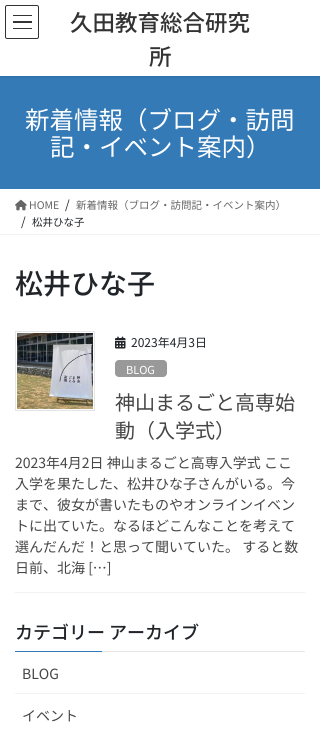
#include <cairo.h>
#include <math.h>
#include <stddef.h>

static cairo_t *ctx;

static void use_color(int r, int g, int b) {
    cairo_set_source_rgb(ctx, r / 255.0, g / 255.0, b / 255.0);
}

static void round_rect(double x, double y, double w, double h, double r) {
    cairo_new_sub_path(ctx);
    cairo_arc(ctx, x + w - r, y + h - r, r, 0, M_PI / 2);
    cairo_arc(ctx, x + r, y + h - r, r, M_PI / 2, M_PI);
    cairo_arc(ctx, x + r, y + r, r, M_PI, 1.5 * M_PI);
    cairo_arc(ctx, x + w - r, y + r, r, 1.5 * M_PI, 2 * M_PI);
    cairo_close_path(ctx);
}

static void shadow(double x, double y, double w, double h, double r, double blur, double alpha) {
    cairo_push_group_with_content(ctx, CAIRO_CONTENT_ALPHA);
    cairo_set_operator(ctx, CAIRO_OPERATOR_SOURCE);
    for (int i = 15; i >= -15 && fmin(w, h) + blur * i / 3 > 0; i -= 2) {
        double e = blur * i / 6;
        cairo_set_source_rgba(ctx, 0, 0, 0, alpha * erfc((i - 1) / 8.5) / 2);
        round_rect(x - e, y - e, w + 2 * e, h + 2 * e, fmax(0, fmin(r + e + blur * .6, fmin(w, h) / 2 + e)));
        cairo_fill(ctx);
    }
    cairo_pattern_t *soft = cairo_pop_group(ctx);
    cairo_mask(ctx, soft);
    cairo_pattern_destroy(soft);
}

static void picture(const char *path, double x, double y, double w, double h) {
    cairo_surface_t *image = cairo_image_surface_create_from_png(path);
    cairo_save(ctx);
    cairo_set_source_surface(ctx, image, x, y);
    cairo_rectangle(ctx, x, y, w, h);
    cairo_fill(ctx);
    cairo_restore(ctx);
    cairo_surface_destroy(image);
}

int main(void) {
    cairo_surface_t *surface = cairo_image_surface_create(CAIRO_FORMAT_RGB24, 320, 732);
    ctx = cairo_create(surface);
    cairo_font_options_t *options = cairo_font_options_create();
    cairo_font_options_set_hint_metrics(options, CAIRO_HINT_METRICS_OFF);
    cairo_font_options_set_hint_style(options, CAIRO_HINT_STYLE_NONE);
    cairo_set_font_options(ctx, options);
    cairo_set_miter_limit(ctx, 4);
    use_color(255, 255, 255);
    cairo_paint(ctx);
    use_color(51, 122, 183);
    cairo_rectangle(ctx, 0, 76, 320, 113);
    cairo_fill(ctx);
    cairo_save(ctx);
    cairo_rectangle(ctx, 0, 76, 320, 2);
    cairo_clip(ctx);
    use_color(0, 0, 0);
    shadow(0, 1, 320, 76, 0, 1.5, 0.1);
    cairo_restore(ctx);
    use_color(51, 51, 51);
    cairo_rectangle(ctx, 13, 15, 19, 1);
    cairo_fill(ctx);
    cairo_rectangle(ctx, 13, 21, 19, 2);
    cairo_fill(ctx);
    cairo_rectangle(ctx, 13, 28, 19, 1);
    cairo_fill(ctx);
    round_rect(5.5, 5.5, 33, 33, 1.5);
    cairo_set_line_width(ctx, 1);
    cairo_stroke(ctx);
    cairo_select_font_face(ctx, "Noto Sans JP Medium", CAIRO_FONT_SLANT_NORMAL, CAIRO_FONT_WEIGHT_NORMAL);
    cairo_set_font_size(ctx, 22.5);
    cairo_move_to(ctx, 70, 31);
    cairo_show_text(ctx, "久田教育総合研究");
    cairo_move_to(ctx, 149, 65);
    cairo_show_text(ctx, "所");
    cairo_select_font_face(ctx, "Noto Sans JP", CAIRO_FONT_SLANT_NORMAL, CAIRO_FONT_WEIGHT_NORMAL);
    cairo_set_font_size(ctx, 24.5);
    use_color(255, 255, 255);
    cairo_move_to(ctx, 25, 129);
    cairo_show_text(ctx, "新着情報（ブログ・訪問");
    cairo_move_to(ctx, 50, 156);
    cairo_show_text(ctx, "記・イベント案内）");
    use_color(242, 242, 242);
    cairo_rectangle(ctx, 0, 234, 320, 1);
    cairo_fill(ctx);
    picture("img1.png", 15, 199, 12, 12);
    cairo_set_font_size(ctx, 10.5);
    use_color(102, 102, 102);
    cairo_move_to(ctx, 29, 209);
    cairo_show_text(ctx, "HOME");
    cairo_set_font_size(ctx, 12);
    use_color(33, 37, 41);
    cairo_move_to(ctx, 65, 209);
    cairo_show_text(ctx, "/");
    cairo_set_font_size(ctx, 10.5);
    use_color(102, 102, 102);
    cairo_move_to(ctx, 76, 209);
    cairo_show_text(ctx, "新着情報（ブログ・訪問記・イベント案内）");
    cairo_set_font_size(ctx, 12);
    use_color(33, 37, 41);
    cairo_move_to(ctx, 21, 226);
    cairo_show_text(ctx, "/");
    cairo_set_font_size(ctx, 10.5);
    cairo_move_to(ctx, 32, 226);
    cairo_show_text(ctx, "松井ひな子");
    cairo_select_font_face(ctx, "Noto Sans JP Medium", CAIRO_FONT_SLANT_NORMAL, CAIRO_FONT_WEIGHT_NORMAL);
    cairo_set_font_size(ctx, 28);
    cairo_move_to(ctx, 15, 294);
    cairo_show_text(ctx, "松井ひな子");
    use_color(242, 242, 242);
    cairo_rectangle(ctx, 15, 592, 290, 1);
    cairo_fill(ctx);
    cairo_rectangle(ctx, 15.5, 331.5, 79, 79);
    use_color(229, 229, 229);
    cairo_stroke(ctx);
    picture("img2.png", 17, 333, 76, 76);
    picture("img3.png", 115, 336, 11, 13);
    cairo_select_font_face(ctx, "Noto Sans JP", CAIRO_FONT_SLANT_NORMAL, CAIRO_FONT_WEIGHT_NORMAL);
    cairo_set_font_size(ctx, 12);
    use_color(33, 37, 41);
    cairo_move_to(ctx, 131, 347);
    cairo_show_text(ctx, "2023年4月3日");
    use_color(153, 153, 153);
    round_rect(115, 360, 52, 17, 4);
    cairo_fill(ctx);
    cairo_set_font_size(ctx, 11);
    use_color(255, 255, 255);
    cairo_move_to(ctx, 126, 374);
    cairo_show_text(ctx, "BLOG");
    cairo_set_font_size(ctx, 20);
    use_color(70, 70, 70);
    cairo_move_to(ctx, 115, 410);
    cairo_show_text(ctx, "神山まるごと高専始");
    cairo_move_to(ctx, 115, 438);
    cairo_show_text(ctx, "動（入学式）");
    cairo_set_font_size(ctx, 14);
    cairo_move_to(ctx, 15, 468);
    cairo_show_text(ctx, "2023年4月2日 神山まるごと高専入学式 ここ");
    cairo_move_to(ctx, 15, 489);
    cairo_show_text(ctx, "入学を果たした、松井ひな子さんがいる。今");
    cairo_move_to(ctx, 15, 510);
    cairo_show_text(ctx, "まで、彼女が書いたものやオンラインイベン");
    cairo_move_to(ctx, 15, 531);
    cairo_show_text(ctx, "トに出ていた。なるほどこんなことを考えて");
    cairo_move_to(ctx, 15, 552);
    cairo_show_text(ctx, "選んだんだ！と思って聞いていた。 すると数");
    cairo_move_to(ctx, 15, 573);
    cairo_show_text(ctx, "日前、北海 […]");
    use_color(230, 230, 230);
    cairo_rectangle(ctx, 102, 651, 203, 1);
    cairo_fill(ctx);
    cairo_select_font_face(ctx, "Noto Sans JP Medium", CAIRO_FONT_SLANT_NORMAL, CAIRO_FONT_WEIGHT_NORMAL);
    cairo_set_font_size(ctx, 18);
    use_color(33, 37, 41);
    cairo_move_to(ctx, 15, 639);
    cairo_show_text(ctx, "カテゴリー アーカイブ");
    use_color(51, 122, 183);
    cairo_rectangle(ctx, 15, 651, 87, 1);
    cairo_fill(ctx);
    use_color(242, 242, 242);
    cairo_rectangle(ctx, 15, 693, 290, 1);
    cairo_fill(ctx);
    cairo_select_font_face(ctx, "Noto Sans JP", CAIRO_FONT_SLANT_NORMAL, CAIRO_FONT_WEIGHT_NORMAL);
    cairo_set_font_size(ctx, 14);
    use_color(70, 70, 70);
    cairo_move_to(ctx, 22, 679);
    cairo_show_text(ctx, "BLOG");
    cairo_move_to(ctx, 22, 721);
    cairo_show_text(ctx, "イベント");
    cairo_surface_write_to_png(surface, "result.png");
    cairo_font_options_destroy(options);
    cairo_destroy(ctx);
    cairo_surface_destroy(surface);
    return 0;
}
